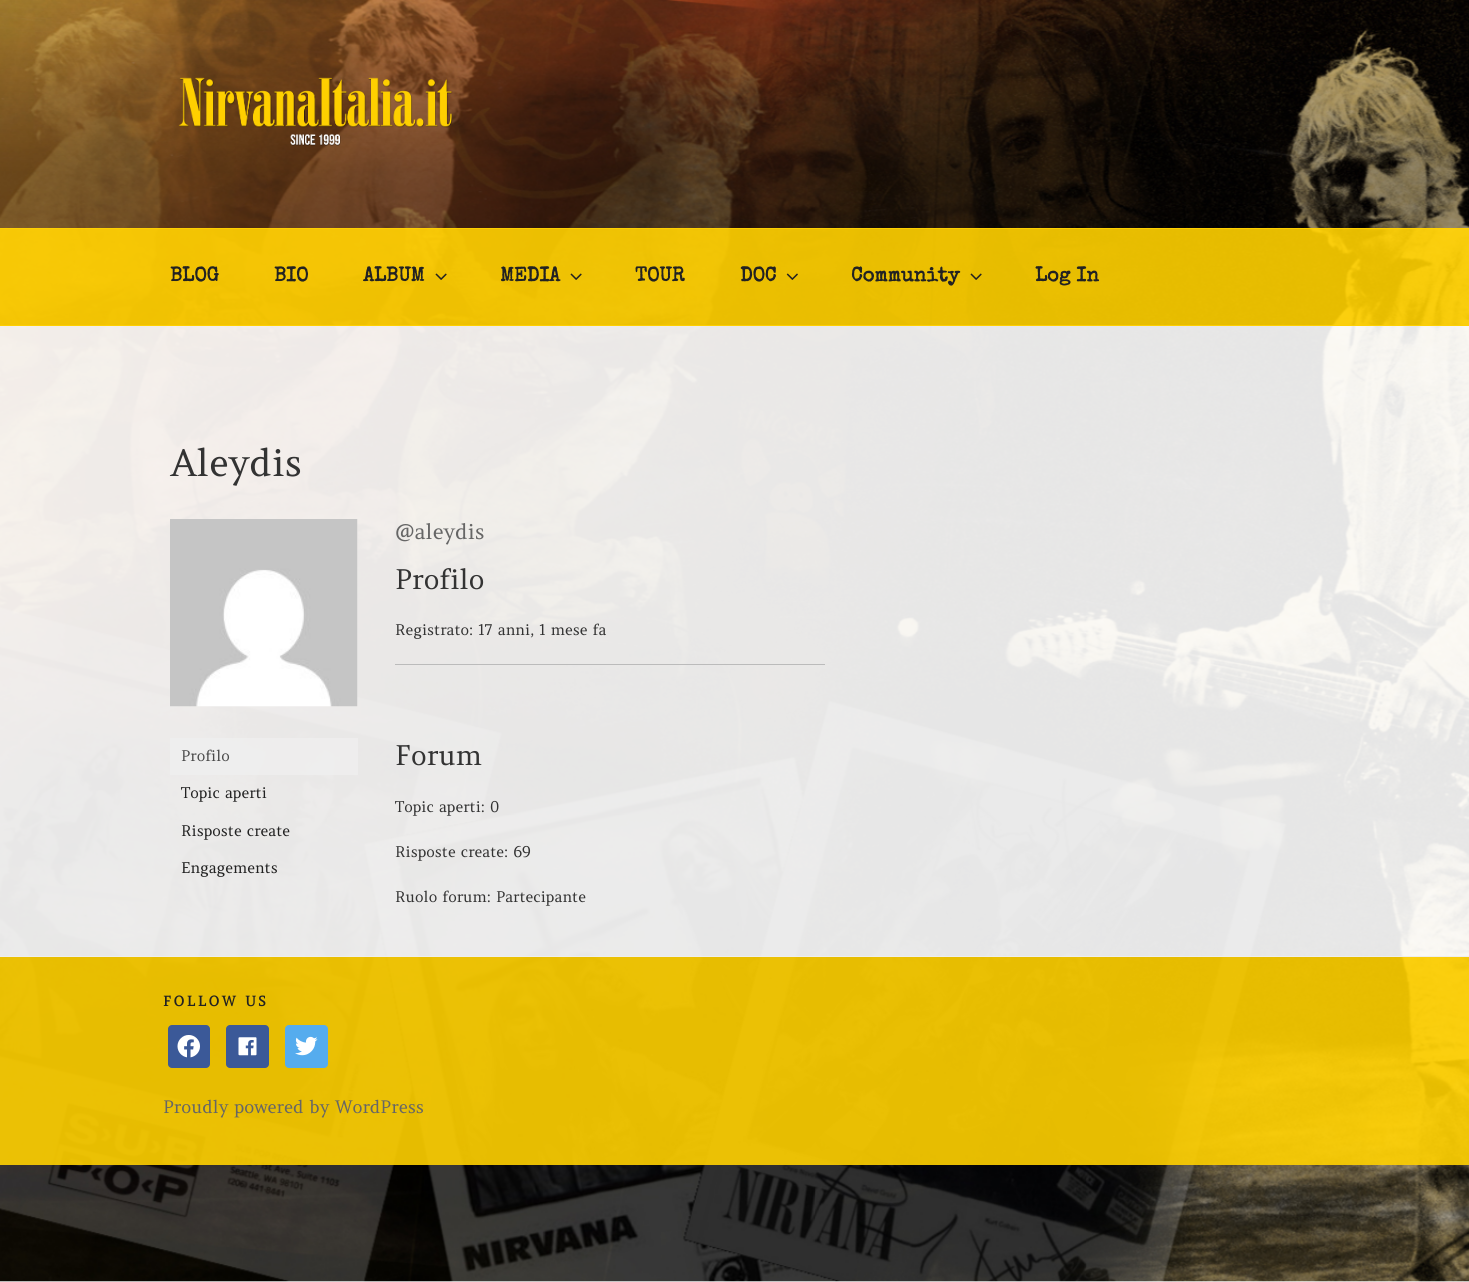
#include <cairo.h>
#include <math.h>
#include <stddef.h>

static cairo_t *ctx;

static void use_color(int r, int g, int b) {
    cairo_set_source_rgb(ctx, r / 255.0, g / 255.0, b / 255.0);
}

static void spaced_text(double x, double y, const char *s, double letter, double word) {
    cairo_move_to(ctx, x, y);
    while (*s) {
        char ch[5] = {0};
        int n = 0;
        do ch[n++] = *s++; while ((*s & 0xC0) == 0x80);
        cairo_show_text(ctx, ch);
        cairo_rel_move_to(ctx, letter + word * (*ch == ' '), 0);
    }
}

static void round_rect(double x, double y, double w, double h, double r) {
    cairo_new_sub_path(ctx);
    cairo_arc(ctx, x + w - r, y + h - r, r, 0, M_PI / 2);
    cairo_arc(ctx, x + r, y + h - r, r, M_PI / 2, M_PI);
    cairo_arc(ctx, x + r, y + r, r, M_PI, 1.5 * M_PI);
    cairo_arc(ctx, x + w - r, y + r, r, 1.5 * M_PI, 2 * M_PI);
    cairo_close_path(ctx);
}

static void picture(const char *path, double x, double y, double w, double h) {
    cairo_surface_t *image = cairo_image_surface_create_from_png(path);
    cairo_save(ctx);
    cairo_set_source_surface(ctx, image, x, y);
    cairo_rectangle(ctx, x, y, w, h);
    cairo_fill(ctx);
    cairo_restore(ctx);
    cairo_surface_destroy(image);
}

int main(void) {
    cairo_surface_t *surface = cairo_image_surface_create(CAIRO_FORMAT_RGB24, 1469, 1282);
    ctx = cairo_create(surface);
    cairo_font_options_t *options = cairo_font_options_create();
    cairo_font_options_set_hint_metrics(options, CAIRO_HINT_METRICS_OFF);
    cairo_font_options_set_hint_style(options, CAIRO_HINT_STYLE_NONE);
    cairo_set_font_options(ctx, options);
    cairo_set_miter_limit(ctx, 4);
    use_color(255, 255, 255);
    cairo_paint(ctx);
    picture("img1.png", 0, 0, 1469, 1282);
    picture("img2.png", 178, 77, 275, 69);
    cairo_set_source_rgba(ctx, 1, 0.82, 0, 0.9);
    cairo_rectangle(ctx, 0, 228, 1469, 98);
    cairo_fill(ctx);
    cairo_rectangle(ctx, 0, 228, 1469, 1);
    cairo_fill(ctx);
    cairo_rectangle(ctx, 0, 325, 1469, 1);
    cairo_fill(ctx);
    cairo_select_font_face(ctx, "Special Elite", CAIRO_FONT_SLANT_NORMAL, CAIRO_FONT_WEIGHT_BOLD);
    cairo_set_font_size(ctx, 20);
    use_color(34, 34, 34);
    cairo_move_to(ctx, 170, 281);
    cairo_show_text(ctx, "BLOG");
    cairo_move_to(ctx, 274, 281);
    cairo_show_text(ctx, "BIO");
    cairo_move_to(ctx, 363, 281);
    cairo_show_text(ctx, "ALBUM");
    picture("img3.png", 435, 273, 12, 7);
    cairo_move_to(ctx, 500, 281);
    cairo_show_text(ctx, "MEDIA");
    picture("img4.png", 570, 273, 12, 7);
    cairo_move_to(ctx, 635, 281);
    cairo_show_text(ctx, "TOUR");
    cairo_move_to(ctx, 740, 281);
    cairo_show_text(ctx, "DOC");
    picture("img5.png", 786, 273, 12, 7);
    cairo_move_to(ctx, 851, 281);
    cairo_show_text(ctx, "Community");
    picture("img6.png", 970, 273, 12, 7);
    cairo_move_to(ctx, 1035, 281);
    cairo_show_text(ctx, "Log In");
    cairo_set_source_rgba(ctx, 1, 1, 1, 0.9);
    cairo_rectangle(ctx, 0, 326, 1469, 630);
    cairo_fill(ctx);
    cairo_select_font_face(ctx, "Amethysta", CAIRO_FONT_SLANT_NORMAL, CAIRO_FONT_WEIGHT_NORMAL);
    cairo_set_font_size(ctx, 37.5);
    use_color(51, 51, 51);
    cairo_move_to(ctx, 170, 476);
    cairo_show_text(ctx, "Aleydis");
    picture("img7.png", 170, 519, 188, 188);
    cairo_set_source_rgba(ctx, 0.933, 0.933, 0.933, 0.8);
    cairo_rectangle(ctx, 170, 738, 188, 37);
    cairo_fill(ctx);
    cairo_set_font_size(ctx, 15);
    use_color(74, 74, 74);
    cairo_move_to(ctx, 181, 761);
    cairo_show_text(ctx, "Profilo");
    use_color(34, 34, 34);
    cairo_move_to(ctx, 181, 798);
    cairo_show_text(ctx, "Topic aperti");
    cairo_move_to(ctx, 181, 836);
    cairo_show_text(ctx, "Risposte create");
    cairo_move_to(ctx, 181, 873);
    cairo_show_text(ctx, "Engagements");
    cairo_set_font_size(ctx, 21);
    use_color(102, 102, 102);
    cairo_move_to(ctx, 395, 539);
    cairo_show_text(ctx, "@aleydis");
    cairo_set_font_size(ctx, 27.5);
    use_color(51, 51, 51);
    cairo_move_to(ctx, 395, 589);
    cairo_show_text(ctx, "Profilo");
    cairo_set_font_size(ctx, 15);
    cairo_move_to(ctx, 395, 635);
    cairo_show_text(ctx, "Registrato: 17 anni, 1 mese fa");
    use_color(187, 187, 187);
    cairo_rectangle(ctx, 395, 664, 430, 1);
    cairo_fill(ctx);
    cairo_set_font_size(ctx, 27.5);
    use_color(51, 51, 51);
    cairo_move_to(ctx, 395, 765);
    cairo_show_text(ctx, "Forum");
    cairo_set_font_size(ctx, 15);
    cairo_move_to(ctx, 395, 812);
    cairo_show_text(ctx, "Topic aperti: 0");
    cairo_move_to(ctx, 395, 857);
    cairo_show_text(ctx, "Risposte create: 69");
    cairo_move_to(ctx, 395, 902);
    cairo_show_text(ctx, "Ruolo forum: Partecipante");
    cairo_set_source_rgba(ctx, 1, 0.82, 0, 0.9);
    cairo_rectangle(ctx, 0, 957, 1469, 208);
    cairo_fill(ctx);
    use_color(238, 238, 238);
    cairo_rectangle(ctx, 0, 956, 1469, 1);
    cairo_fill(ctx);
    cairo_select_font_face(ctx, "Amethysta", CAIRO_FONT_SLANT_NORMAL, CAIRO_FONT_WEIGHT_BOLD);
    cairo_set_font_size(ctx, 13.75);
    use_color(34, 34, 34);
    spaced_text(163, 1006, "FOLLOW US", 2.5, 0);
    use_color(59, 89, 152);
    round_rect(168, 1025, 42, 43, 4);
    cairo_fill(ctx);
    picture("img8.png", 177, 1035, 23, 23);
    round_rect(226, 1025, 43, 43, 4);
    cairo_fill(ctx);
    picture("img9.png", 238, 1037, 19, 19);
    use_color(85, 172, 238);
    round_rect(285, 1025, 43, 43, 4);
    cairo_fill(ctx);
    picture("img10.png", 295, 1036, 23, 20);
    cairo_select_font_face(ctx, "Amethysta", CAIRO_FONT_SLANT_NORMAL, CAIRO_FONT_WEIGHT_NORMAL);
    cairo_set_font_size(ctx, 17.5);
    use_color(102, 102, 102);
    cairo_move_to(ctx, 163, 1113);
    cairo_show_text(ctx, "Proudly powered by WordPress");
    cairo_surface_write_to_png(surface, "result.png");
    cairo_font_options_destroy(options);
    cairo_destroy(ctx);
    cairo_surface_destroy(surface);
    return 0;
}
